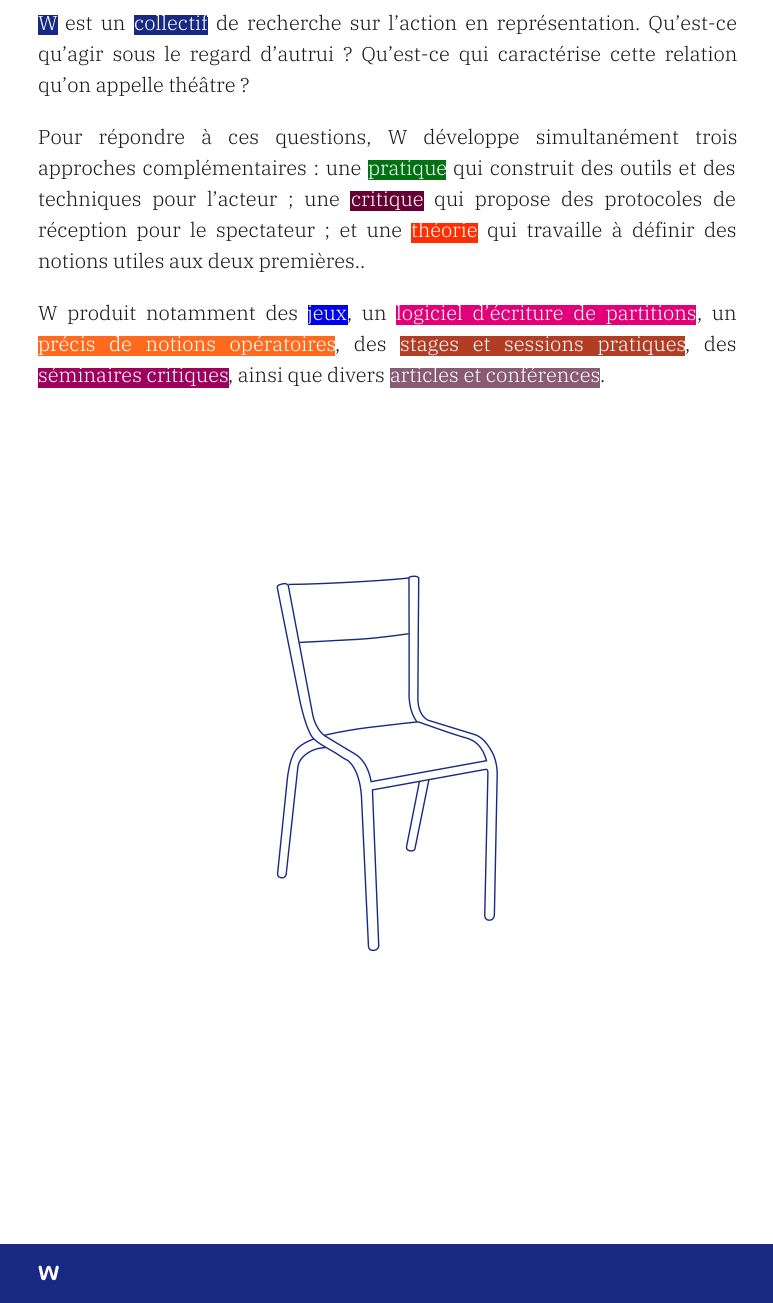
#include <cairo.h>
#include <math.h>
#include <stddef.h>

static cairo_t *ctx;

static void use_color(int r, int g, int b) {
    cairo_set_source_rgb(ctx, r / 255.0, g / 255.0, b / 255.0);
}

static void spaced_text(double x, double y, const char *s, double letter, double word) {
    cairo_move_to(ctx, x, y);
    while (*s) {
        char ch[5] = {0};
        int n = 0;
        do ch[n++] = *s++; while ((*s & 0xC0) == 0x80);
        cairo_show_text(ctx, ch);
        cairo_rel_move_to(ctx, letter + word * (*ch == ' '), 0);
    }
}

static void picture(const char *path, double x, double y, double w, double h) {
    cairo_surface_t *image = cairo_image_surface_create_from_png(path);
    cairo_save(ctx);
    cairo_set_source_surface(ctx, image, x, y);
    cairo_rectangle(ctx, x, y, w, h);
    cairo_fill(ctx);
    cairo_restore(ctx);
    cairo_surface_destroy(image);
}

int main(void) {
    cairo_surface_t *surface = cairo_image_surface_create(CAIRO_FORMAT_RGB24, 773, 1303);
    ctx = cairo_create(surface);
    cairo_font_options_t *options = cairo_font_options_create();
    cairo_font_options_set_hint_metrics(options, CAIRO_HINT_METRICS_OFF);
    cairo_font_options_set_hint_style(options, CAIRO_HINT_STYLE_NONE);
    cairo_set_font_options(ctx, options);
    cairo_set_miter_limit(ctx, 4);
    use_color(255, 255, 255);
    cairo_paint(ctx);
    use_color(23, 41, 131);
    cairo_rectangle(ctx, 38, 15, 20, 20);
    cairo_fill(ctx);
    cairo_select_font_face(ctx, "IBM Plex Serif Light", CAIRO_FONT_SLANT_NORMAL, CAIRO_FONT_WEIGHT_NORMAL);
    cairo_set_font_size(ctx, 20);
    use_color(255, 255, 255);
    cairo_move_to(ctx, 38, 30);
    cairo_show_text(ctx, "W");
    use_color(26, 26, 26);
    spaced_text(65, 30, "est un", 0, 3.5);
    use_color(23, 41, 131);
    cairo_rectangle(ctx, 134, 15, 74, 20);
    cairo_fill(ctx);
    use_color(255, 255, 255);
    cairo_move_to(ctx, 134, 30);
    cairo_show_text(ctx, "collectif");
    use_color(26, 26, 26);
    spaced_text(216, 30, "de recherche sur l’action en représentation. Qu’est-ce", 0, 3.5);
    spaced_text(38, 61, "qu’agir sous le regard d’autrui ? Qu’est-ce qui caractérise cette relation", 0, 4.25);
    cairo_move_to(ctx, 38, 92);
    cairo_show_text(ctx, "qu’on appelle théâtre ?");
    spaced_text(38, 144, "Pour répondre à ces questions, W développe simultanément trois", 0, 11.5);
    spaced_text(38, 175, "approches complémentaires : une", 0, 2);
    use_color(0, 114, 18);
    cairo_rectangle(ctx, 368, 160, 78, 20);
    cairo_fill(ctx);
    use_color(255, 255, 255);
    cairo_move_to(ctx, 368, 175);
    cairo_show_text(ctx, "pratique");
    use_color(26, 26, 26);
    spaced_text(453, 175, "qui construit des outils et des", 0, 2);
    spaced_text(38, 206, "techniques pour l’acteur ; une", 0, 6);
    use_color(102, 0, 51);
    cairo_rectangle(ctx, 350, 191, 74, 20);
    cairo_fill(ctx);
    use_color(255, 255, 255);
    cairo_move_to(ctx, 351, 206);
    cairo_show_text(ctx, "critique");
    use_color(26, 26, 26);
    spaced_text(434, 206, "qui propose des protocoles de", 0, 6);
    spaced_text(38, 237, "réception pour le spectateur ; et une", 0, 4.75);
    use_color(255, 45, 0);
    cairo_rectangle(ctx, 411, 223, 67, 20);
    cairo_fill(ctx);
    use_color(255, 255, 255);
    cairo_move_to(ctx, 411, 237);
    cairo_show_text(ctx, "théorie");
    use_color(26, 26, 26);
    spaced_text(487, 237, "qui travaille à définir des", 0, 4.75);
    cairo_move_to(ctx, 38, 268);
    cairo_show_text(ctx, "notions utiles aux deux premières..");
    spaced_text(38, 320, "W produit notamment des", 0, 5);
    use_color(0, 0, 235);
    cairo_rectangle(ctx, 308, 305, 40, 20);
    cairo_fill(ctx);
    use_color(255, 255, 255);
    cairo_move_to(ctx, 307, 320);
    cairo_show_text(ctx, "jeux");
    use_color(26, 26, 26);
    spaced_text(347, 320, ", un", 0, 5);
    use_color(226, 0, 121);
    cairo_rectangle(ctx, 396, 305, 300, 20);
    cairo_fill(ctx);
    use_color(255, 255, 255);
    spaced_text(396, 320, "logiciel d’écriture de partitions", 0, 5);
    use_color(26, 26, 26);
    spaced_text(697, 320, ", un", 0, 5);
    use_color(255, 106, 30);
    cairo_rectangle(ctx, 38, 336, 297, 20);
    cairo_fill(ctx);
    use_color(255, 255, 255);
    spaced_text(38, 351, "précis de notions opératoires", 0, 9);
    use_color(26, 26, 26);
    spaced_text(335, 351, ", des", 0, 9);
    use_color(178, 61, 37);
    cairo_rectangle(ctx, 400, 336, 285, 20);
    cairo_fill(ctx);
    use_color(255, 255, 255);
    spaced_text(400, 351, "stages et sessions pratiques", 0, 9);
    use_color(26, 26, 26);
    spaced_text(685, 351, ", des", 0, 9);
    use_color(158, 0, 93);
    cairo_rectangle(ctx, 38, 368, 191, 20);
    cairo_fill(ctx);
    use_color(255, 255, 255);
    cairo_move_to(ctx, 38, 382);
    cairo_show_text(ctx, "séminaires critiques");
    use_color(26, 26, 26);
    cairo_move_to(ctx, 228, 382);
    cairo_show_text(ctx, ", ainsi que divers");
    use_color(136, 90, 116);
    cairo_rectangle(ctx, 390, 368, 210, 20);
    cairo_fill(ctx);
    use_color(255, 255, 255);
    cairo_move_to(ctx, 390, 382);
    cairo_show_text(ctx, "articles et conférences");
    use_color(26, 26, 26);
    cairo_move_to(ctx, 600, 382);
    cairo_show_text(ctx, ".");
    picture("img1.png", 276, 575, 222, 377);
    use_color(23, 41, 131);
    cairo_rectangle(ctx, 0, 1244, 773, 59);
    cairo_fill(ctx);
    cairo_select_font_face(ctx, "Nunito Black", CAIRO_FONT_SLANT_NORMAL, CAIRO_FONT_WEIGHT_NORMAL);
    use_color(255, 255, 255);
    cairo_move_to(ctx, 38, 1280);
    cairo_show_text(ctx, "W");
    cairo_surface_write_to_png(surface, "result.png");
    cairo_font_options_destroy(options);
    cairo_destroy(ctx);
    cairo_surface_destroy(surface);
    return 0;
}
